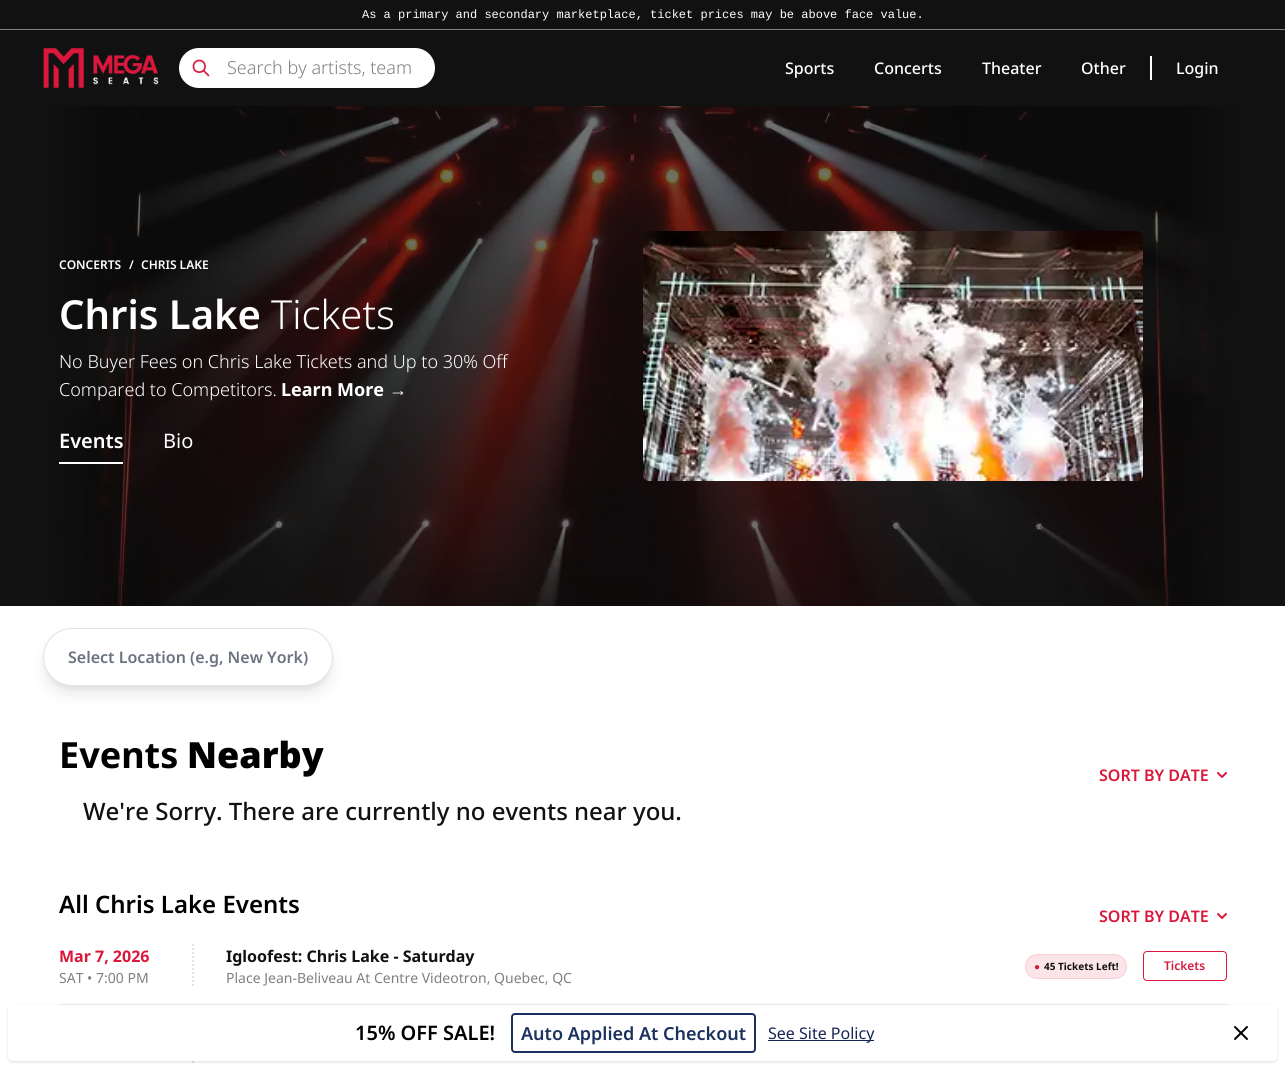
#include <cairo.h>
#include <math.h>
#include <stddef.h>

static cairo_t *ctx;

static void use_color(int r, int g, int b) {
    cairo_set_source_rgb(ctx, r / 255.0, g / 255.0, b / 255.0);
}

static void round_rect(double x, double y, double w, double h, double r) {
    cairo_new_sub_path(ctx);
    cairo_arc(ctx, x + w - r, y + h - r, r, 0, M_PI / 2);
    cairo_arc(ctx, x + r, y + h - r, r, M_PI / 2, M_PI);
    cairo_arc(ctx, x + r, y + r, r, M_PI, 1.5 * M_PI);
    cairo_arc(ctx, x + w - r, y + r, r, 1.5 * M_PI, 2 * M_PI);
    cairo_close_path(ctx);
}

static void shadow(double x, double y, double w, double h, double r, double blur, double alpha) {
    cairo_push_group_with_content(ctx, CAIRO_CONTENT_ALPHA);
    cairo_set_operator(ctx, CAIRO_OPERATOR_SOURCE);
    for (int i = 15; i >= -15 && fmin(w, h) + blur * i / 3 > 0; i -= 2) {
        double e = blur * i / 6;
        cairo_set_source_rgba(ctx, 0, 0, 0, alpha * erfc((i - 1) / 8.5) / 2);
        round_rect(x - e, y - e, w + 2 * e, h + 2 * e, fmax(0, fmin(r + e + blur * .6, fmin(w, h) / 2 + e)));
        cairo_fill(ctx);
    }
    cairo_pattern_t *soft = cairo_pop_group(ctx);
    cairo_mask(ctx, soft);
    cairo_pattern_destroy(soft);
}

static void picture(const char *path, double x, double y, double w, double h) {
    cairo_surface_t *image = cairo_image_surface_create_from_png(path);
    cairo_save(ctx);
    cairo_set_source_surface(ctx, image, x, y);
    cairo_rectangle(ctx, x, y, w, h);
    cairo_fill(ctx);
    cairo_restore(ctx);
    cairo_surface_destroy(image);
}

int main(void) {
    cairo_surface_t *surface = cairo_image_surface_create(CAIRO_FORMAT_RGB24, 1285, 1069);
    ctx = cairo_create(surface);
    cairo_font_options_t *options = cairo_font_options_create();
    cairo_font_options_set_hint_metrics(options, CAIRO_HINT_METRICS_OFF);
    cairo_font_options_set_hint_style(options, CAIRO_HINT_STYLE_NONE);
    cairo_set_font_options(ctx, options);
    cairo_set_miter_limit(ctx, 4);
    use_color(255, 255, 255);
    cairo_paint(ctx);
    use_color(17, 17, 17);
    cairo_rectangle(ctx, 0, 0, 1285, 29);
    cairo_fill(ctx);
    use_color(128, 128, 128);
    cairo_rectangle(ctx, 0, 29, 1285, 1);
    cairo_fill(ctx);
    cairo_select_font_face(ctx, "Liberation Mono", CAIRO_FONT_SLANT_NORMAL, CAIRO_FONT_WEIGHT_NORMAL);
    cairo_set_font_size(ctx, 12);
    use_color(255, 255, 255);
    cairo_move_to(ctx, 362, 18);
    cairo_show_text(ctx, "As a primary and secondary marketplace, ticket prices may be above face value.");
    use_color(17, 17, 17);
    cairo_rectangle(ctx, 0, 30, 1285, 576);
    cairo_fill(ctx);
    picture("img1.png", 43, 48, 116, 40);
    use_color(255, 255, 255);
    round_rect(179, 48, 256, 40, 20);
    cairo_fill(ctx);
    cairo_new_path(ctx);
    cairo_move_to(ctx, 208.5, 75.5);
    cairo_line_to(ctx, 203.5, 70.5);
    cairo_move_to(ctx, 205, 66.5);
    cairo_curve_to(ctx, 205, 74, 193.5, 74, 193.5, 66.5);
    cairo_curve_to(ctx, 193.5, 58.5, 205, 58.5, 205, 66.5);
    cairo_close_path(ctx);
    use_color(218, 24, 59);
    cairo_set_line_width(ctx, 1.7);
    cairo_set_line_cap(ctx, CAIRO_LINE_CAP_ROUND);
    cairo_set_line_join(ctx, CAIRO_LINE_JOIN_ROUND);
    cairo_stroke(ctx);
    cairo_select_font_face(ctx, "Noto Sans Light", CAIRO_FONT_SLANT_NORMAL, CAIRO_FONT_WEIGHT_NORMAL);
    cairo_set_font_size(ctx, 18);
    use_color(128, 128, 128);
    cairo_move_to(ctx, 227, 74);
    cairo_show_text(ctx, "Search by artists, team");
    cairo_select_font_face(ctx, "Noto Sans Medium", CAIRO_FONT_SLANT_NORMAL, CAIRO_FONT_WEIGHT_NORMAL);
    cairo_set_font_size(ctx, 16);
    use_color(255, 255, 255);
    cairo_move_to(ctx, 785, 74);
    cairo_show_text(ctx, "Sports");
    cairo_move_to(ctx, 874, 74);
    cairo_show_text(ctx, "Concerts");
    cairo_move_to(ctx, 982, 74);
    cairo_show_text(ctx, "Theater");
    cairo_move_to(ctx, 1081, 74);
    cairo_show_text(ctx, "Other");
    cairo_rectangle(ctx, 1150, 56, 2, 24);
    cairo_fill(ctx);
    cairo_move_to(ctx, 1176, 74);
    cairo_show_text(ctx, "Login");
    picture("img2.png", 43, 106, 1200, 500);
    cairo_select_font_face(ctx, "Noto Sans SemiBold", CAIRO_FONT_SLANT_NORMAL, CAIRO_FONT_WEIGHT_NORMAL);
    cairo_set_font_size(ctx, 12);
    cairo_move_to(ctx, 59, 269);
    cairo_show_text(ctx, "CONCERTS");
    cairo_move_to(ctx, 129, 269);
    cairo_show_text(ctx, "/");
    cairo_move_to(ctx, 141, 269);
    cairo_show_text(ctx, "CHRIS LAKE");
    cairo_set_font_size(ctx, 40);
    cairo_move_to(ctx, 59, 329);
    cairo_show_text(ctx, "Chris Lake");
    cairo_select_font_face(ctx, "Noto Sans Light", CAIRO_FONT_SLANT_NORMAL, CAIRO_FONT_WEIGHT_NORMAL);
    cairo_move_to(ctx, 271, 329);
    cairo_show_text(ctx, "Tickets");
    cairo_set_font_size(ctx, 18);
    cairo_move_to(ctx, 59, 368);
    cairo_show_text(ctx, "No Buyer Fees on Chris Lake Tickets and Up to 30% Off");
    cairo_move_to(ctx, 59, 396);
    cairo_show_text(ctx, "Compared to Competitors.");
    cairo_select_font_face(ctx, "Noto Sans", CAIRO_FONT_SLANT_NORMAL, CAIRO_FONT_WEIGHT_BOLD);
    cairo_move_to(ctx, 281, 396);
    cairo_show_text(ctx, "Learn More");
    cairo_select_font_face(ctx, "Liberation Sans", CAIRO_FONT_SLANT_NORMAL, CAIRO_FONT_WEIGHT_BOLD);
    cairo_move_to(ctx, 389, 396);
    cairo_show_text(ctx, "→");
    cairo_select_font_face(ctx, "Noto Sans SemiBold", CAIRO_FONT_SLANT_NORMAL, CAIRO_FONT_WEIGHT_NORMAL);
    cairo_set_font_size(ctx, 20);
    cairo_move_to(ctx, 59, 448);
    cairo_show_text(ctx, "Events");
    cairo_rectangle(ctx, 59, 462, 64, 2);
    cairo_fill(ctx);
    cairo_select_font_face(ctx, "Noto Sans", CAIRO_FONT_SLANT_NORMAL, CAIRO_FONT_WEIGHT_NORMAL);
    cairo_move_to(ctx, 163, 448);
    cairo_show_text(ctx, "Bio");
    picture("img3.png", 643, 231, 500, 250);
    use_color(0, 0, 0);
    shadow(47, 636, 282, 50, 25, 3, 0.1);
    shadow(46, 641, 284, 52, 26, 7.5, 0.1);
    use_color(255, 255, 255);
    round_rect(43.5, 628.5, 289, 57, 28.5);
    cairo_fill_preserve(ctx);
    use_color(226, 226, 226);
    cairo_set_line_width(ctx, 1);
    cairo_set_line_cap(ctx, CAIRO_LINE_CAP_BUTT);
    cairo_set_line_join(ctx, CAIRO_LINE_JOIN_MITER);
    cairo_stroke(ctx);
    cairo_select_font_face(ctx, "Noto Sans SemiBold", CAIRO_FONT_SLANT_NORMAL, CAIRO_FONT_WEIGHT_NORMAL);
    cairo_set_font_size(ctx, 16);
    use_color(107, 114, 128);
    cairo_move_to(ctx, 68, 663);
    cairo_show_text(ctx, "Select Location (e.g, New York)");
    cairo_select_font_face(ctx, "Noto Sans", CAIRO_FONT_SLANT_NORMAL, CAIRO_FONT_WEIGHT_BOLD);
    cairo_set_font_size(ctx, 36);
    use_color(0, 0, 0);
    cairo_move_to(ctx, 59, 768);
    cairo_show_text(ctx, "Events");
    cairo_select_font_face(ctx, "Noto Sans Black", CAIRO_FONT_SLANT_NORMAL, CAIRO_FONT_WEIGHT_NORMAL);
    cairo_move_to(ctx, 187, 768);
    cairo_show_text(ctx, "Nearby");
    cairo_select_font_face(ctx, "Noto Sans SemiBold", CAIRO_FONT_SLANT_NORMAL, CAIRO_FONT_WEIGHT_NORMAL);
    cairo_set_font_size(ctx, 16);
    use_color(218, 24, 59);
    cairo_move_to(ctx, 1099, 781);
    cairo_show_text(ctx, "SORT BY DATE");
    cairo_new_path(ctx);
    cairo_move_to(ctx, 1218, 773);
    cairo_line_to(ctx, 1222, 777);
    cairo_line_to(ctx, 1226, 773);
    cairo_set_line_width(ctx, 2);
    cairo_set_line_cap(ctx, CAIRO_LINE_CAP_ROUND);
    cairo_set_line_join(ctx, CAIRO_LINE_JOIN_ROUND);
    cairo_stroke(ctx);
    cairo_select_font_face(ctx, "Noto Sans Medium", CAIRO_FONT_SLANT_NORMAL, CAIRO_FONT_WEIGHT_NORMAL);
    cairo_set_font_size(ctx, 24);
    use_color(17, 17, 17);
    cairo_move_to(ctx, 83, 820);
    cairo_show_text(ctx, "We're Sorry. There are currently no events near you.");
    cairo_select_font_face(ctx, "Noto Sans SemiBold", CAIRO_FONT_SLANT_NORMAL, CAIRO_FONT_WEIGHT_NORMAL);
    use_color(0, 0, 0);
    cairo_move_to(ctx, 59, 913);
    cairo_show_text(ctx, "All Chris Lake Events");
    cairo_set_font_size(ctx, 16);
    use_color(218, 24, 59);
    cairo_move_to(ctx, 1099, 922);
    cairo_show_text(ctx, "SORT BY DATE");
    cairo_new_path(ctx);
    cairo_move_to(ctx, 1218, 914);
    cairo_line_to(ctx, 1222, 918);
    cairo_line_to(ctx, 1226, 914);
    cairo_stroke(ctx);
    use_color(237, 237, 237);
    cairo_rectangle(ctx, 59, 1004, 1168, 1);
    cairo_fill(ctx);
    cairo_new_path(ctx);
    cairo_move_to(ctx, 193, 944);
    cairo_line_to(ctx, 193, 988);
    use_color(226, 226, 226);
    cairo_set_line_cap(ctx, CAIRO_LINE_CAP_BUTT);
    cairo_set_line_join(ctx, CAIRO_LINE_JOIN_MITER);
    cairo_set_dash(ctx, (double[]){2, 2}, 2, 0);
    cairo_stroke(ctx);
    cairo_select_font_face(ctx, "Noto Sans", CAIRO_FONT_SLANT_NORMAL, CAIRO_FONT_WEIGHT_BOLD);
    use_color(218, 24, 59);
    cairo_move_to(ctx, 59, 962);
    cairo_show_text(ctx, "Mar 7, 2026");
    cairo_select_font_face(ctx, "Noto Sans", CAIRO_FONT_SLANT_NORMAL, CAIRO_FONT_WEIGHT_NORMAL);
    cairo_set_font_size(ctx, 14);
    use_color(128, 128, 128);
    cairo_move_to(ctx, 59, 983);
    cairo_show_text(ctx, "SAT");
    cairo_move_to(ctx, 87, 983);
    cairo_show_text(ctx, "•");
    cairo_move_to(ctx, 96, 983);
    cairo_show_text(ctx, "7:00 PM");
    cairo_select_font_face(ctx, "Noto Sans", CAIRO_FONT_SLANT_NORMAL, CAIRO_FONT_WEIGHT_BOLD);
    cairo_set_font_size(ctx, 16);
    use_color(17, 17, 17);
    cairo_move_to(ctx, 226, 962);
    cairo_show_text(ctx, "Igloofest: Chris Lake - Saturday");
    cairo_select_font_face(ctx, "Noto Sans", CAIRO_FONT_SLANT_NORMAL, CAIRO_FONT_WEIGHT_NORMAL);
    cairo_set_font_size(ctx, 14);
    use_color(128, 128, 128);
    cairo_move_to(ctx, 226, 983);
    cairo_show_text(ctx, "Place Jean-Beliveau At Centre Videotron, Quebec, QC");
    use_color(251, 229, 233);
    round_rect(1025, 954, 102, 25, 12.5);
    cairo_fill(ctx);
    round_rect(1025.5, 954.5, 101, 24, 12);
    cairo_set_source_rgba(ctx, 0.855, 0.094, 0.231, 0.11);
    cairo_set_line_width(ctx, 1);
    cairo_set_dash(ctx, NULL, 0, 0);
    cairo_stroke(ctx);
    cairo_select_font_face(ctx, "Liberation Sans", CAIRO_FONT_SLANT_NORMAL, CAIRO_FONT_WEIGHT_BOLD);
    cairo_set_font_size(ctx, 10);
    use_color(218, 24, 59);
    cairo_move_to(ctx, 1034, 970);
    cairo_show_text(ctx, "●");
    cairo_select_font_face(ctx, "Noto Sans", CAIRO_FONT_SLANT_NORMAL, CAIRO_FONT_WEIGHT_BOLD);
    use_color(17, 17, 17);
    cairo_move_to(ctx, 1044, 970);
    cairo_show_text(ctx, "45 Tickets Left!");
    round_rect(1143.5, 951.5, 83, 29, 3.5);
    use_color(218, 24, 59);
    cairo_stroke(ctx);
    cairo_select_font_face(ctx, "Noto Sans SemiBold", CAIRO_FONT_SLANT_NORMAL, CAIRO_FONT_WEIGHT_NORMAL);
    cairo_set_font_size(ctx, 12);
    cairo_move_to(ctx, 1164, 970);
    cairo_show_text(ctx, "Tickets");
    cairo_new_path(ctx);
    cairo_move_to(ctx, 193, 1021);
    cairo_line_to(ctx, 193, 1065);
    use_color(226, 226, 226);
    cairo_set_line_width(ctx, 2);
    cairo_set_dash(ctx, (double[]){2, 2}, 2, 0);
    cairo_stroke(ctx);
    use_color(0, 0, 0);
    shadow(9, 1007, 1267, 54, 3, 1, 0.1);
    shadow(8, 1006, 1269, 56, 4, 1.5, 0.1);
    use_color(255, 255, 255);
    round_rect(8, 1005, 1269, 56, 4);
    cairo_fill(ctx);
    cairo_set_font_size(ctx, 20);
    use_color(0, 0, 0);
    cairo_move_to(ctx, 355, 1040);
    cairo_show_text(ctx, "15% OFF SALE!");
    round_rect(512, 1014, 243, 38, 3);
    use_color(28, 49, 95);
    cairo_set_dash(ctx, NULL, 0, 0);
    cairo_stroke(ctx);
    cairo_set_font_size(ctx, 18);
    cairo_move_to(ctx, 521, 1040);
    cairo_show_text(ctx, "Auto Applied At Checkout");
    use_color(23, 37, 84);
    cairo_rectangle(ctx, 768, 1040, 106, 1);
    cairo_fill(ctx);
    cairo_select_font_face(ctx, "Noto Sans", CAIRO_FONT_SLANT_NORMAL, CAIRO_FONT_WEIGHT_NORMAL);
    cairo_set_font_size(ctx, 16);
    cairo_move_to(ctx, 768, 1039);
    cairo_show_text(ctx, "See Site Policy");
    cairo_new_path(ctx);
    cairo_move_to(ctx, 1235, 1039);
    cairo_line_to(ctx, 1247, 1027);
    cairo_move_to(ctx, 1235, 1027);
    cairo_line_to(ctx, 1247, 1039);
    use_color(0, 0, 0);
    cairo_set_line_cap(ctx, CAIRO_LINE_CAP_ROUND);
    cairo_set_line_join(ctx, CAIRO_LINE_JOIN_ROUND);
    cairo_stroke(ctx);
    cairo_surface_write_to_png(surface, "result.png");
    cairo_font_options_destroy(options);
    cairo_destroy(ctx);
    cairo_surface_destroy(surface);
    return 0;
}
